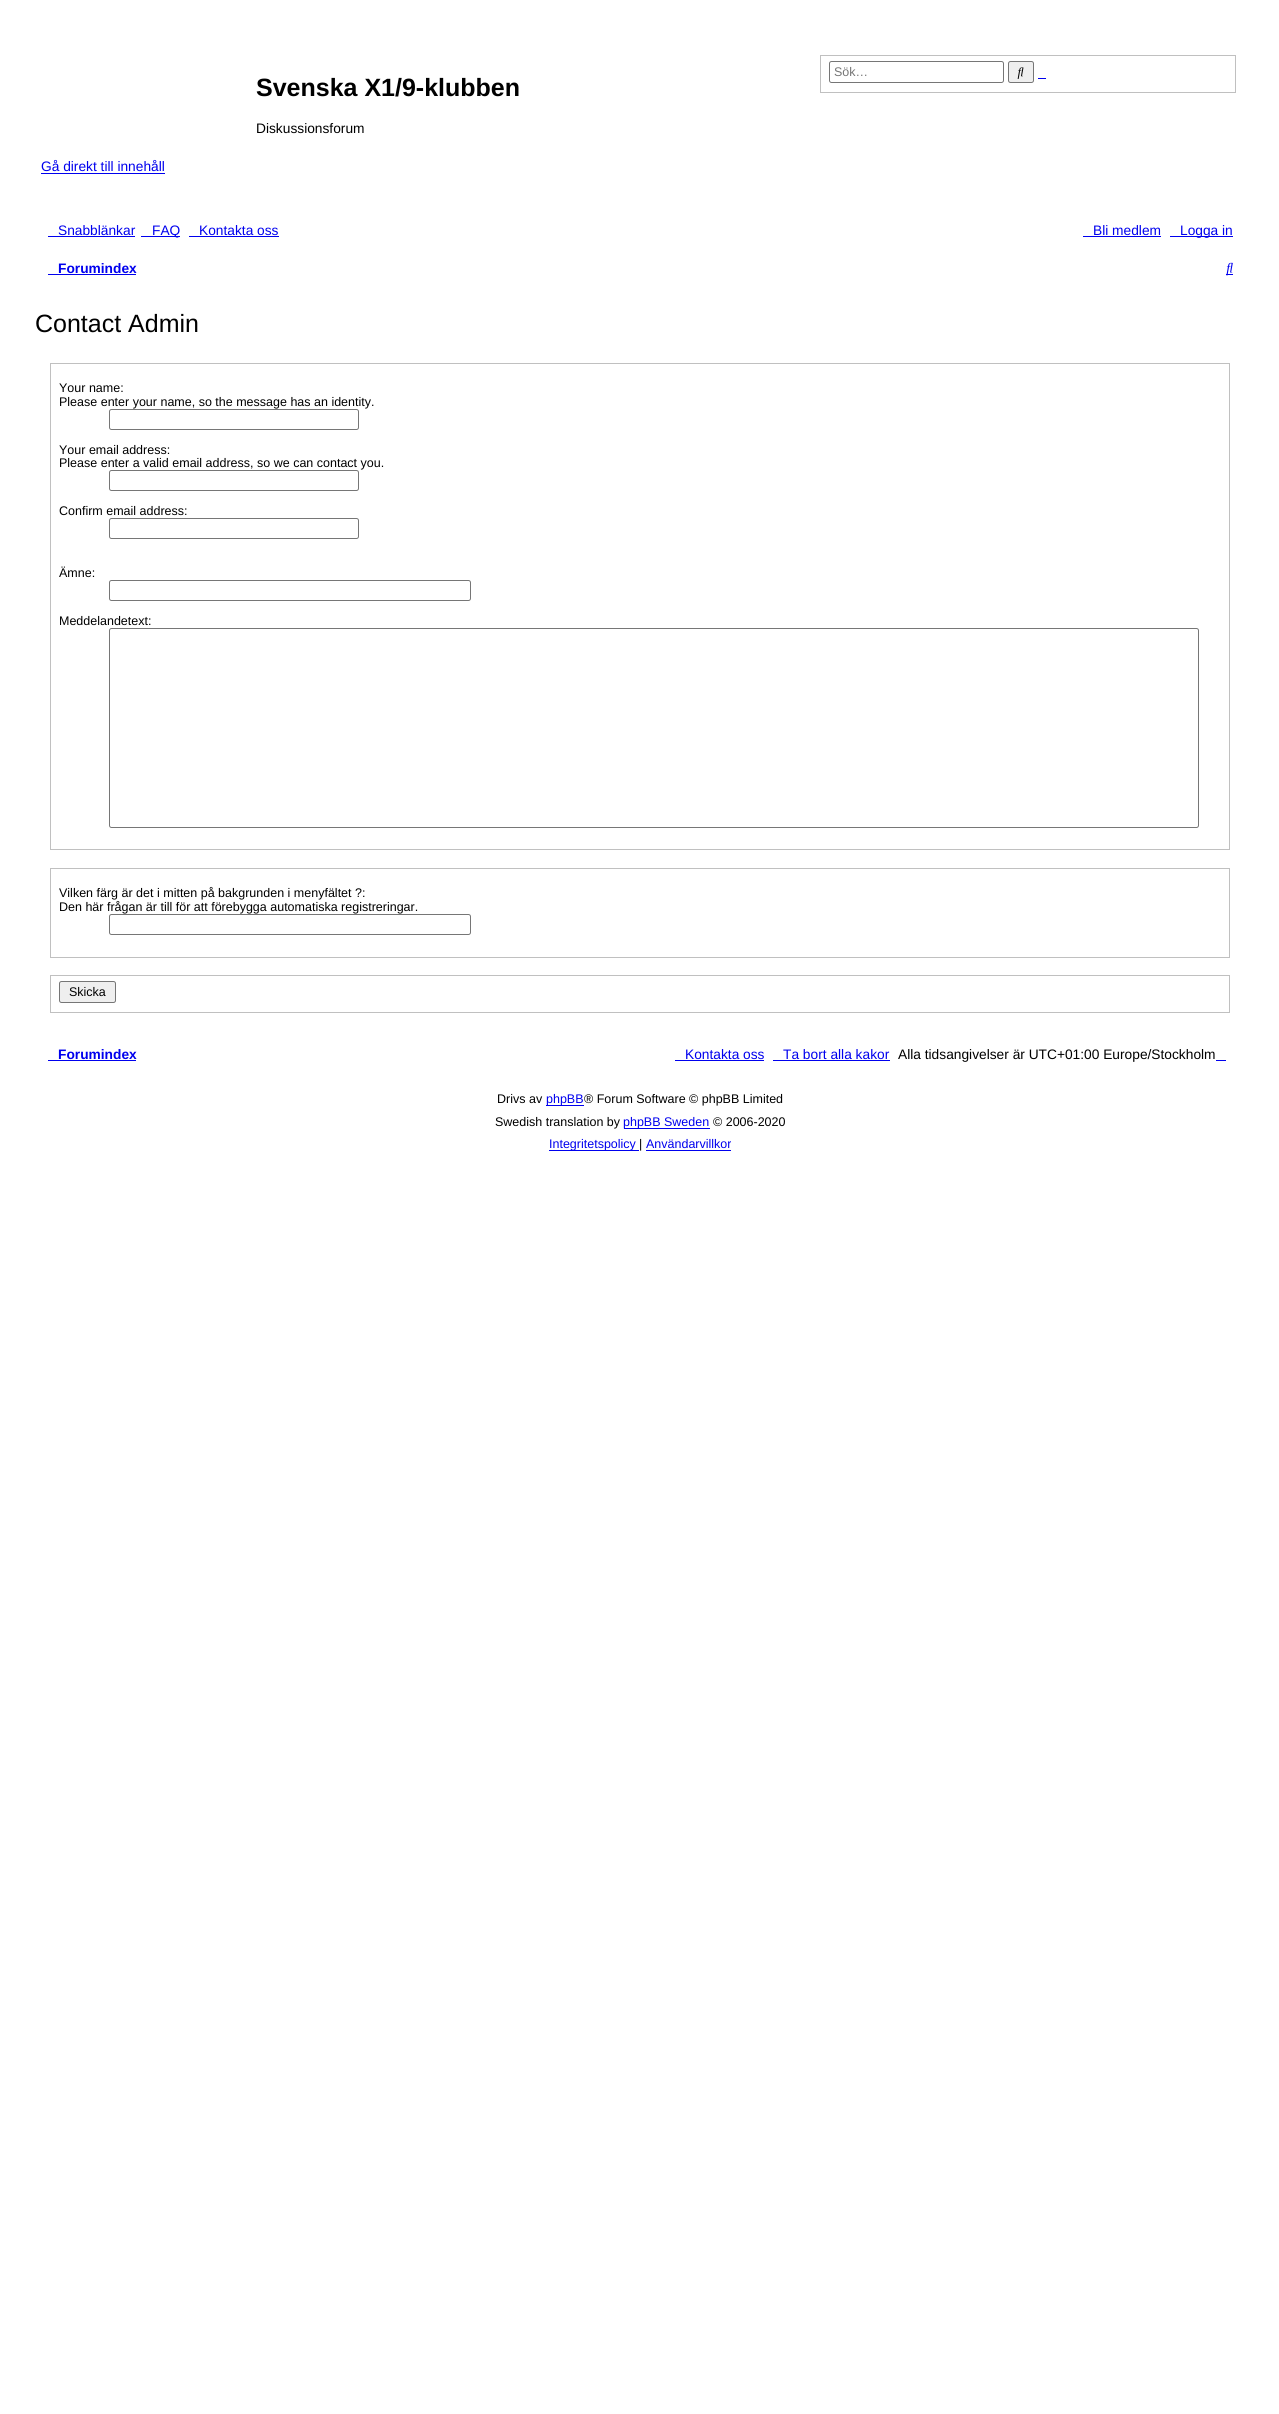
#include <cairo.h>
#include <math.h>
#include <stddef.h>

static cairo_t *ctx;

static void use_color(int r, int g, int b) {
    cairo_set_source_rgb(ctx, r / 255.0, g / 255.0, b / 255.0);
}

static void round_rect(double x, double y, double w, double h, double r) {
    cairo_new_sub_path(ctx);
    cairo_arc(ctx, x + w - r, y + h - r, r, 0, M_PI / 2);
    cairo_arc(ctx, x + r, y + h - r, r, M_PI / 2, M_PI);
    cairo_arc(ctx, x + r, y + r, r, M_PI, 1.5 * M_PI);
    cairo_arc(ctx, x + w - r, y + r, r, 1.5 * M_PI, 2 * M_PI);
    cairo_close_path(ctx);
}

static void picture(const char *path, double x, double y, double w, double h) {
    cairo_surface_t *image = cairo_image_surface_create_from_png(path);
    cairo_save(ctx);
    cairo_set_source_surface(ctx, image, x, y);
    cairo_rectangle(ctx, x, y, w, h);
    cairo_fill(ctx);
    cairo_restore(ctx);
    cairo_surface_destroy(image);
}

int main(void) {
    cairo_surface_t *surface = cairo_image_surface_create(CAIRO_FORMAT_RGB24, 1279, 2414);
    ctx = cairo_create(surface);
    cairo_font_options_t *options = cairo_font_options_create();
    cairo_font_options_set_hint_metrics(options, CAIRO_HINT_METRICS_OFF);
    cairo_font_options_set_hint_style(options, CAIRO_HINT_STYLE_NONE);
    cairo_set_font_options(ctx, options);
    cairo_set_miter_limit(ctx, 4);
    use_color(255, 255, 255);
    cairo_paint(ctx);
    cairo_rectangle(ctx, 820.5, 55.5, 415, 37);
    use_color(192, 192, 192);
    cairo_set_line_width(ctx, 1);
    cairo_stroke(ctx);
    round_rect(829.5, 61.5, 174, 21, 2);
    use_color(118, 118, 118);
    cairo_stroke(ctx);
    cairo_select_font_face(ctx, "Liberation Sans", CAIRO_FONT_SLANT_NORMAL, CAIRO_FONT_WEIGHT_NORMAL);
    cairo_set_font_size(ctx, 12.5);
    use_color(117, 117, 117);
    cairo_move_to(ctx, 834, 76);
    cairo_show_text(ctx, "Sök…");
    use_color(239, 239, 239);
    round_rect(1008.5, 61.5, 25, 21, 2);
    cairo_fill_preserve(ctx);
    use_color(118, 118, 118);
    cairo_stroke(ctx);
    picture("img1.png", 1017, 67, 7, 12);
    use_color(0, 0, 238);
    cairo_rectangle(ctx, 1038, 78, 8, 1);
    cairo_fill(ctx);
    cairo_select_font_face(ctx, "Liberation Sans", CAIRO_FONT_SLANT_NORMAL, CAIRO_FONT_WEIGHT_BOLD);
    cairo_set_font_size(ctx, 25);
    use_color(0, 0, 0);
    cairo_move_to(ctx, 256, 96);
    cairo_show_text(ctx, "Svenska X1/9-klubben");
    cairo_select_font_face(ctx, "Liberation Sans", CAIRO_FONT_SLANT_NORMAL, CAIRO_FONT_WEIGHT_NORMAL);
    cairo_set_font_size(ctx, 13.75);
    cairo_move_to(ctx, 256, 133);
    cairo_show_text(ctx, "Diskussionsforum");
    use_color(0, 0, 238);
    cairo_move_to(ctx, 41, 171);
    cairo_show_text(ctx, "Gå direkt till innehåll");
    cairo_rectangle(ctx, 41, 173, 124, 1);
    cairo_fill(ctx);
    cairo_move_to(ctx, 58, 235);
    cairo_show_text(ctx, "Snabblänkar");
    cairo_rectangle(ctx, 48, 236, 87, 1);
    cairo_fill(ctx);
    cairo_rectangle(ctx, 141, 236, 39, 1);
    cairo_fill(ctx);
    cairo_move_to(ctx, 152, 235);
    cairo_show_text(ctx, "FAQ");
    cairo_move_to(ctx, 199, 235);
    cairo_show_text(ctx, "Kontakta oss");
    cairo_rectangle(ctx, 189, 236, 90, 1);
    cairo_fill(ctx);
    cairo_move_to(ctx, 1093, 235);
    cairo_show_text(ctx, "Bli medlem");
    cairo_rectangle(ctx, 1083, 236, 78, 1);
    cairo_fill(ctx);
    cairo_rectangle(ctx, 1170, 236, 63, 1);
    cairo_fill(ctx);
    cairo_move_to(ctx, 1180, 235);
    cairo_show_text(ctx, "Logga in");
    cairo_select_font_face(ctx, "Liberation Sans", CAIRO_FONT_SLANT_NORMAL, CAIRO_FONT_WEIGHT_BOLD);
    cairo_move_to(ctx, 58, 273);
    cairo_show_text(ctx, "Forumindex");
    cairo_rectangle(ctx, 48, 274, 88, 1);
    cairo_fill(ctx);
    cairo_rectangle(ctx, 1226, 274, 7, 1);
    cairo_fill(ctx);
    picture("img2.png", 1226, 262, 7, 14);
    cairo_select_font_face(ctx, "Liberation Sans", CAIRO_FONT_SLANT_NORMAL, CAIRO_FONT_WEIGHT_NORMAL);
    cairo_set_font_size(ctx, 25);
    use_color(0, 0, 0);
    cairo_move_to(ctx, 35, 332);
    cairo_show_text(ctx, "Contact Admin");
    cairo_rectangle(ctx, 50.5, 363.5, 1179, 486);
    use_color(192, 192, 192);
    cairo_stroke(ctx);
    cairo_set_font_size(ctx, 12.5);
    use_color(0, 0, 0);
    cairo_move_to(ctx, 59, 392);
    cairo_show_text(ctx, "Your name:");
    cairo_move_to(ctx, 59, 406);
    cairo_show_text(ctx, "Please enter your name, so the message has an identity.");
    round_rect(109.5, 409.5, 249, 20, 2);
    use_color(118, 118, 118);
    cairo_stroke(ctx);
    use_color(0, 0, 0);
    cairo_move_to(ctx, 59, 454);
    cairo_show_text(ctx, "Your email address:");
    cairo_move_to(ctx, 59, 467);
    cairo_show_text(ctx, "Please enter a valid email address, so we can contact you.");
    round_rect(109.5, 470.5, 249, 20, 2);
    use_color(118, 118, 118);
    cairo_stroke(ctx);
    use_color(0, 0, 0);
    cairo_move_to(ctx, 59, 515);
    cairo_show_text(ctx, "Confirm email address:");
    round_rect(109.5, 518.5, 249, 20, 2);
    use_color(118, 118, 118);
    cairo_stroke(ctx);
    use_color(0, 0, 0);
    cairo_move_to(ctx, 59, 577);
    cairo_show_text(ctx, "Ämne:");
    round_rect(109.5, 580.5, 361, 20, 2);
    use_color(118, 118, 118);
    cairo_stroke(ctx);
    use_color(0, 0, 0);
    cairo_move_to(ctx, 59, 625);
    cairo_show_text(ctx, "Meddelandetext:");
    round_rect(109.5, 628.5, 1089, 199, 2);
    use_color(118, 118, 118);
    cairo_stroke(ctx);
    cairo_rectangle(ctx, 50.5, 868.5, 1179, 89);
    use_color(192, 192, 192);
    cairo_stroke(ctx);
    use_color(0, 0, 0);
    cairo_move_to(ctx, 59, 897);
    cairo_show_text(ctx, "Vilken färg är det i mitten på bakgrunden i menyfältet ?:");
    cairo_move_to(ctx, 59, 911);
    cairo_show_text(ctx, "Den här frågan är till för att förebygga automatiska registreringar.");
    round_rect(109.5, 914.5, 361, 20, 2);
    use_color(118, 118, 118);
    cairo_stroke(ctx);
    cairo_rectangle(ctx, 50.5, 975.5, 1179, 37);
    use_color(192, 192, 192);
    cairo_stroke(ctx);
    use_color(239, 239, 239);
    round_rect(59.5, 981.5, 56, 21, 2);
    cairo_fill_preserve(ctx);
    use_color(118, 118, 118);
    cairo_stroke(ctx);
    use_color(0, 0, 0);
    cairo_move_to(ctx, 69, 996);
    cairo_show_text(ctx, "Skicka");
    cairo_select_font_face(ctx, "Liberation Sans", CAIRO_FONT_SLANT_NORMAL, CAIRO_FONT_WEIGHT_BOLD);
    cairo_set_font_size(ctx, 13.75);
    use_color(0, 0, 238);
    cairo_move_to(ctx, 58, 1059);
    cairo_show_text(ctx, "Forumindex");
    cairo_rectangle(ctx, 48, 1060, 88, 1);
    cairo_fill(ctx);
    cairo_select_font_face(ctx, "Liberation Sans", CAIRO_FONT_SLANT_NORMAL, CAIRO_FONT_WEIGHT_NORMAL);
    cairo_move_to(ctx, 685, 1059);
    cairo_show_text(ctx, "Kontakta oss");
    cairo_rectangle(ctx, 675, 1060, 89, 1);
    cairo_fill(ctx);
    cairo_move_to(ctx, 783, 1059);
    cairo_show_text(ctx, "Ta bort alla kakor");
    cairo_rectangle(ctx, 773, 1060, 117, 1);
    cairo_fill(ctx);
    use_color(0, 0, 0);
    cairo_move_to(ctx, 898, 1059);
    cairo_show_text(ctx, "Alla tidsangivelser är UTC+01:00 Europe/Stockholm");
    use_color(0, 0, 238);
    cairo_rectangle(ctx, 1216, 1060, 10, 1);
    cairo_fill(ctx);
    cairo_set_font_size(ctx, 12.5);
    use_color(0, 0, 0);
    cairo_move_to(ctx, 497, 1103);
    cairo_show_text(ctx, "Drivs av");
    use_color(0, 0, 238);
    cairo_rectangle(ctx, 546, 1105, 38, 1);
    cairo_fill(ctx);
    cairo_move_to(ctx, 546, 1103);
    cairo_show_text(ctx, "phpBB");
    use_color(0, 0, 0);
    cairo_move_to(ctx, 584, 1103);
    cairo_show_text(ctx, "® Forum Software © phpBB Limited");
    cairo_move_to(ctx, 495, 1126);
    cairo_show_text(ctx, "Swedish translation by");
    use_color(0, 0, 238);
    cairo_rectangle(ctx, 624, 1128, 86, 1);
    cairo_fill(ctx);
    cairo_move_to(ctx, 623, 1126);
    cairo_show_text(ctx, "phpBB Sweden");
    use_color(0, 0, 0);
    cairo_move_to(ctx, 713, 1126);
    cairo_show_text(ctx, "© 2006-2020");
    use_color(0, 0, 238);
    cairo_rectangle(ctx, 549, 1150, 86, 1);
    cairo_fill(ctx);
    cairo_move_to(ctx, 549, 1148);
    cairo_show_text(ctx, "Integritetspolicy");
    cairo_rectangle(ctx, 635, 1150, 4, 1);
    cairo_fill(ctx);
    use_color(0, 0, 0);
    cairo_move_to(ctx, 639, 1148);
    cairo_show_text(ctx, "|");
    use_color(0, 0, 238);
    cairo_move_to(ctx, 646, 1148);
    cairo_show_text(ctx, "Användarvillkor");
    cairo_rectangle(ctx, 646, 1150, 85, 1);
    cairo_fill(ctx);
    cairo_surface_write_to_png(surface, "result.png");
    cairo_font_options_destroy(options);
    cairo_destroy(ctx);
    cairo_surface_destroy(surface);
    return 0;
}
